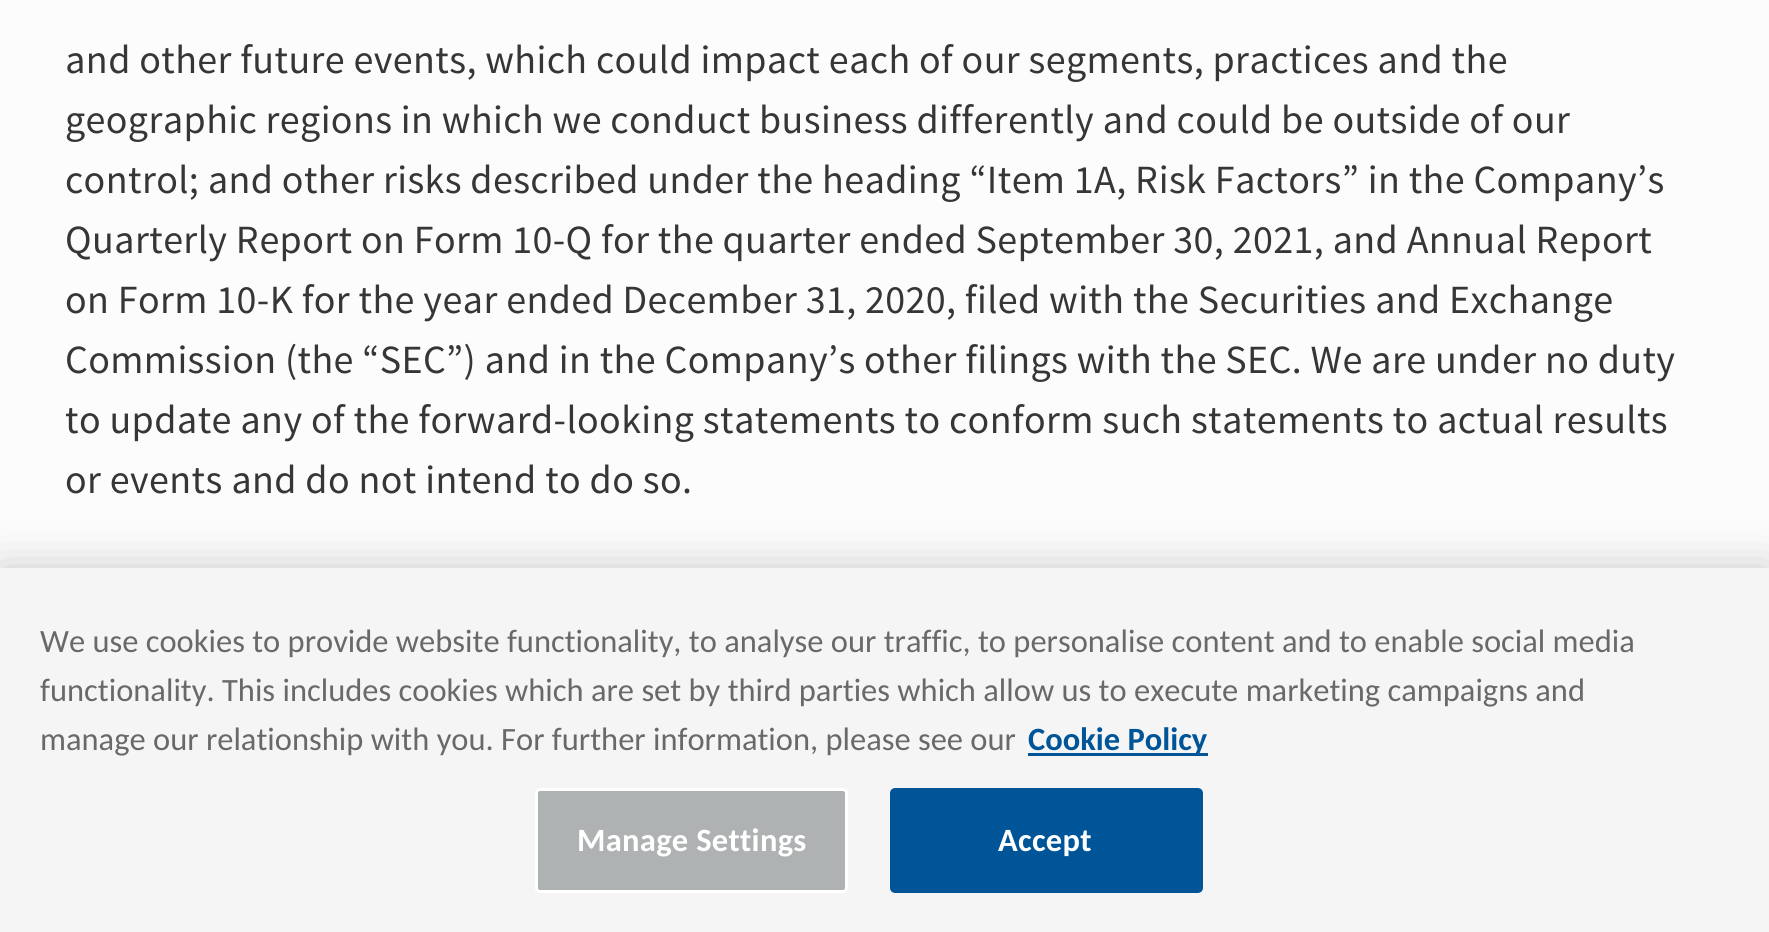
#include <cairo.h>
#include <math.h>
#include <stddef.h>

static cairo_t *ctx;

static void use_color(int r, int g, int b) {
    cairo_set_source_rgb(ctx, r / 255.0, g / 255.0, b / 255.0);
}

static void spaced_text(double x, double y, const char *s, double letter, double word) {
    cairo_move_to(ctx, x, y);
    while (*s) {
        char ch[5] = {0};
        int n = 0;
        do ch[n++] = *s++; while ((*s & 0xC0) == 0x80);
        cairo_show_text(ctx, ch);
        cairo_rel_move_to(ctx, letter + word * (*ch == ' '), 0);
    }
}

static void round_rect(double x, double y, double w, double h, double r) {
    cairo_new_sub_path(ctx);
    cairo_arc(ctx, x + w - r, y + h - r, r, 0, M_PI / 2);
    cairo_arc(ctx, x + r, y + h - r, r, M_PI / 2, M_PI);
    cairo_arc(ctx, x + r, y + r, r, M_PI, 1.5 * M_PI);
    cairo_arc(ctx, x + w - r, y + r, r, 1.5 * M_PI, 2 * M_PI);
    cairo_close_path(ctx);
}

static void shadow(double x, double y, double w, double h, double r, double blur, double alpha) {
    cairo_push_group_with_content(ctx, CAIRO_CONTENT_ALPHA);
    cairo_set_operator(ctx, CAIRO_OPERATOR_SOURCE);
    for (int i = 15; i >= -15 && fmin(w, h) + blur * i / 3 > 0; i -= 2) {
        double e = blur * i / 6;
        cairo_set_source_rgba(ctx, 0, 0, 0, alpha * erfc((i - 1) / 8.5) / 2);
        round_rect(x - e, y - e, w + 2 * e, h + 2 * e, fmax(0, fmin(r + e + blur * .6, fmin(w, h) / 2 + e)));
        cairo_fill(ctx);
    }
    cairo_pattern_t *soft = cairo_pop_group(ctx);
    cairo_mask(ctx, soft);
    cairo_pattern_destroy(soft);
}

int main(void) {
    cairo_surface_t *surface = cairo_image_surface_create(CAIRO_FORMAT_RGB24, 1769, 932);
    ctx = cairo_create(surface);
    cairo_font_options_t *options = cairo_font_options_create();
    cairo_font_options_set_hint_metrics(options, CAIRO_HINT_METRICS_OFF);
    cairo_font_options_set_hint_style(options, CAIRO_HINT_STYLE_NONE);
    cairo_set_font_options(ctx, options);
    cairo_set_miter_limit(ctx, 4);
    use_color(252, 252, 252);
    cairo_paint(ctx);
    cairo_select_font_face(ctx, "Source Sans Pro", CAIRO_FONT_SLANT_NORMAL, CAIRO_FONT_WEIGHT_NORMAL);
    cairo_set_font_size(ctx, 40);
    use_color(54, 54, 54);
    spaced_text(65, 73, "and other future events, which could impact each of our segments, practices and the", 0.4, 0);
    spaced_text(65, 133, "geographic regions in which we conduct business differently and could be outside of our", 0.4, 0);
    spaced_text(65, 193, "control; and other risks described under the heading “Item 1A, Risk Factors” in the Company’s", 0.4, 0);
    spaced_text(65, 253, "Quarterly Report on Form 10-Q for the quarter ended September 30, 2021, and Annual Report", 0.4, 0);
    spaced_text(65, 313, "on Form 10-K for the year ended December 31, 2020, filed with the Securities and Exchange", 0.4, 0);
    spaced_text(65, 373, "Commission (the “SEC”) and in the Company’s other filings with the SEC. We are under no duty", 0.4, 0);
    spaced_text(65, 433, "to update any of the forward-looking statements to conform such statements to actual results", 0.4, 0);
    spaced_text(65, 493, "or events and do not intend to do so.", 0.4, 0);
    use_color(0, 0, 0);
    shadow(0, 568, 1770, 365, 0, 22.5, 0.2);
    use_color(245, 245, 245);
    cairo_rectangle(ctx, 0, 568, 1769, 364);
    cairo_fill(ctx);
    cairo_select_font_face(ctx, "Carlito", CAIRO_FONT_SLANT_NORMAL, CAIRO_FONT_WEIGHT_NORMAL);
    cairo_set_font_size(ctx, 32.5);
    use_color(105, 105, 105);
    cairo_move_to(ctx, 40, 652);
    cairo_show_text(ctx, "We use cookies to provide website functionality, to analyse our traffic, to personalise content and to enable social media");
    cairo_move_to(ctx, 40, 701);
    cairo_show_text(ctx, "functionality. This includes cookies which are set by third parties which allow us to execute marketing campaigns and");
    cairo_move_to(ctx, 40, 750);
    cairo_show_text(ctx, "manage our relationship with you. For further information, please see our");
    use_color(0, 85, 153);
    cairo_rectangle(ctx, 1028, 753, 180, 3);
    cairo_fill(ctx);
    cairo_select_font_face(ctx, "Carlito", CAIRO_FONT_SLANT_NORMAL, CAIRO_FONT_WEIGHT_BOLD);
    cairo_move_to(ctx, 1028, 750);
    cairo_show_text(ctx, "Cookie Policy");
    use_color(175, 178, 179);
    round_rect(536.5, 789.5, 310, 102, 3.5);
    cairo_fill_preserve(ctx);
    use_color(255, 255, 255);
    cairo_set_line_width(ctx, 3);
    cairo_stroke(ctx);
    spaced_text(577, 851, "Manage Settings", 0.3, 0);
    use_color(0, 85, 153);
    round_rect(891.5, 789.5, 310, 102, 3.5);
    cairo_fill_preserve(ctx);
    cairo_stroke(ctx);
    use_color(255, 255, 255);
    spaced_text(998, 851, "Accept", 0.3, 0);
    cairo_surface_write_to_png(surface, "result.png");
    cairo_font_options_destroy(options);
    cairo_destroy(ctx);
    cairo_surface_destroy(surface);
    return 0;
}
